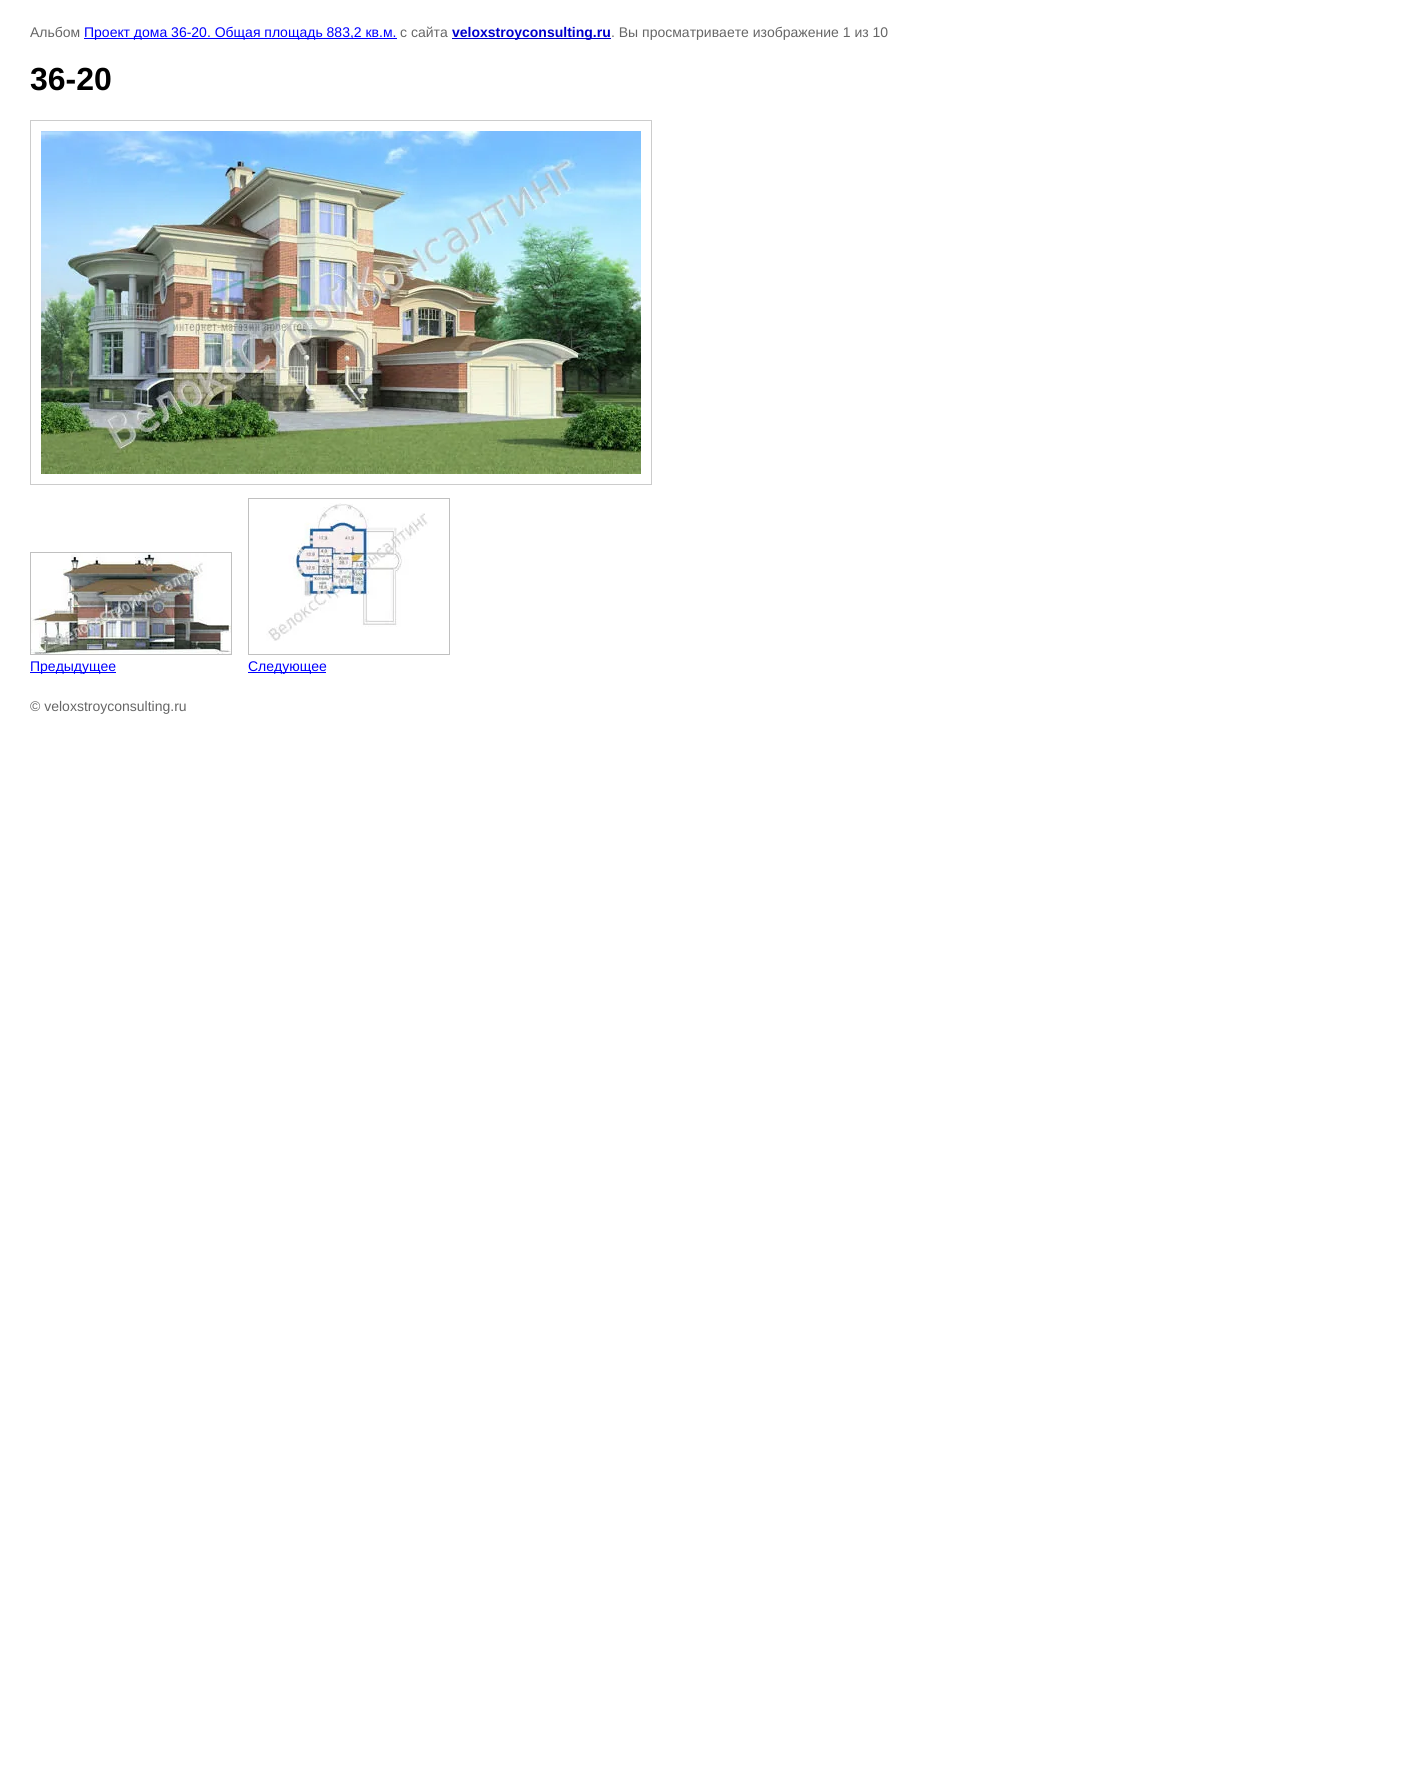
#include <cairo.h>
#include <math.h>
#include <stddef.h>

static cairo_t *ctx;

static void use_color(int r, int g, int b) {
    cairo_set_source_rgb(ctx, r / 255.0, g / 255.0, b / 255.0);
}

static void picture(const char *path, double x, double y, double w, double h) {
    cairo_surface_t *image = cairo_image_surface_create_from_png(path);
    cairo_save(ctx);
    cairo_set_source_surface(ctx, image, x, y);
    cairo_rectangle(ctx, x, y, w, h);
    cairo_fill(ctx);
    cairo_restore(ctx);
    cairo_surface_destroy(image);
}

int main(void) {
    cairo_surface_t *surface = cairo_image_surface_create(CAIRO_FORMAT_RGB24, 1426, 1770);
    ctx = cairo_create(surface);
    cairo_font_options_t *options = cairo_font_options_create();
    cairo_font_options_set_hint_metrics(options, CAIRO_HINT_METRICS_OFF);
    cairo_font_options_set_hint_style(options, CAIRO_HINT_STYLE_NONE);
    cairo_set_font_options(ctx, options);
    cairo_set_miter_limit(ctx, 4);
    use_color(255, 255, 255);
    cairo_paint(ctx);
    cairo_select_font_face(ctx, "Liberation Sans", CAIRO_FONT_SLANT_NORMAL, CAIRO_FONT_WEIGHT_NORMAL);
    cairo_set_font_size(ctx, 14);
    use_color(102, 102, 102);
    cairo_move_to(ctx, 30, 37);
    cairo_show_text(ctx, "Альбом");
    use_color(0, 0, 255);
    cairo_rectangle(ctx, 84, 38, 313, 1);
    cairo_fill(ctx);
    cairo_move_to(ctx, 84, 37);
    cairo_show_text(ctx, "Проект дома 36-20. Общая площадь 883,2 кв.м.");
    use_color(102, 102, 102);
    cairo_move_to(ctx, 400, 37);
    cairo_show_text(ctx, "с сайта");
    use_color(0, 0, 204);
    cairo_rectangle(ctx, 452, 38, 159, 1);
    cairo_fill(ctx);
    cairo_select_font_face(ctx, "Liberation Sans", CAIRO_FONT_SLANT_NORMAL, CAIRO_FONT_WEIGHT_BOLD);
    cairo_move_to(ctx, 452, 37);
    cairo_show_text(ctx, "veloxstroyconsulting.ru");
    cairo_select_font_face(ctx, "Liberation Sans", CAIRO_FONT_SLANT_NORMAL, CAIRO_FONT_WEIGHT_NORMAL);
    use_color(102, 102, 102);
    cairo_move_to(ctx, 611, 37);
    cairo_show_text(ctx, ". Вы просматриваете изображение 1 из 10");
    cairo_select_font_face(ctx, "Liberation Sans", CAIRO_FONT_SLANT_NORMAL, CAIRO_FONT_WEIGHT_BOLD);
    cairo_set_font_size(ctx, 32);
    use_color(0, 0, 0);
    cairo_move_to(ctx, 30, 90);
    cairo_show_text(ctx, "36-20");
    cairo_rectangle(ctx, 30.5, 120.5, 621, 364);
    use_color(204, 204, 204);
    cairo_set_line_width(ctx, 1);
    cairo_stroke(ctx);
    picture("img1.png", 41, 131, 600, 343);
    cairo_rectangle(ctx, 30.5, 552.5, 201, 102);
    use_color(192, 192, 192);
    cairo_stroke(ctx);
    picture("img2.png", 31, 553, 200, 101);
    use_color(0, 0, 255);
    cairo_rectangle(ctx, 30, 672, 86, 1);
    cairo_fill(ctx);
    cairo_select_font_face(ctx, "Liberation Sans", CAIRO_FONT_SLANT_NORMAL, CAIRO_FONT_WEIGHT_NORMAL);
    cairo_set_font_size(ctx, 14);
    cairo_move_to(ctx, 30, 671);
    cairo_show_text(ctx, "Предыдущее");
    cairo_rectangle(ctx, 248.5, 498.5, 201, 156);
    use_color(192, 192, 192);
    cairo_stroke(ctx);
    picture("img3.png", 266, 503, 162, 138);
    use_color(0, 0, 255);
    cairo_rectangle(ctx, 248, 672, 78, 1);
    cairo_fill(ctx);
    cairo_move_to(ctx, 248, 671);
    cairo_show_text(ctx, "Следующее");
    use_color(102, 102, 102);
    cairo_move_to(ctx, 30, 711);
    cairo_show_text(ctx, "© veloxstroyconsulting.ru");
    cairo_surface_write_to_png(surface, "result.png");
    cairo_font_options_destroy(options);
    cairo_destroy(ctx);
    cairo_surface_destroy(surface);
    return 0;
}
